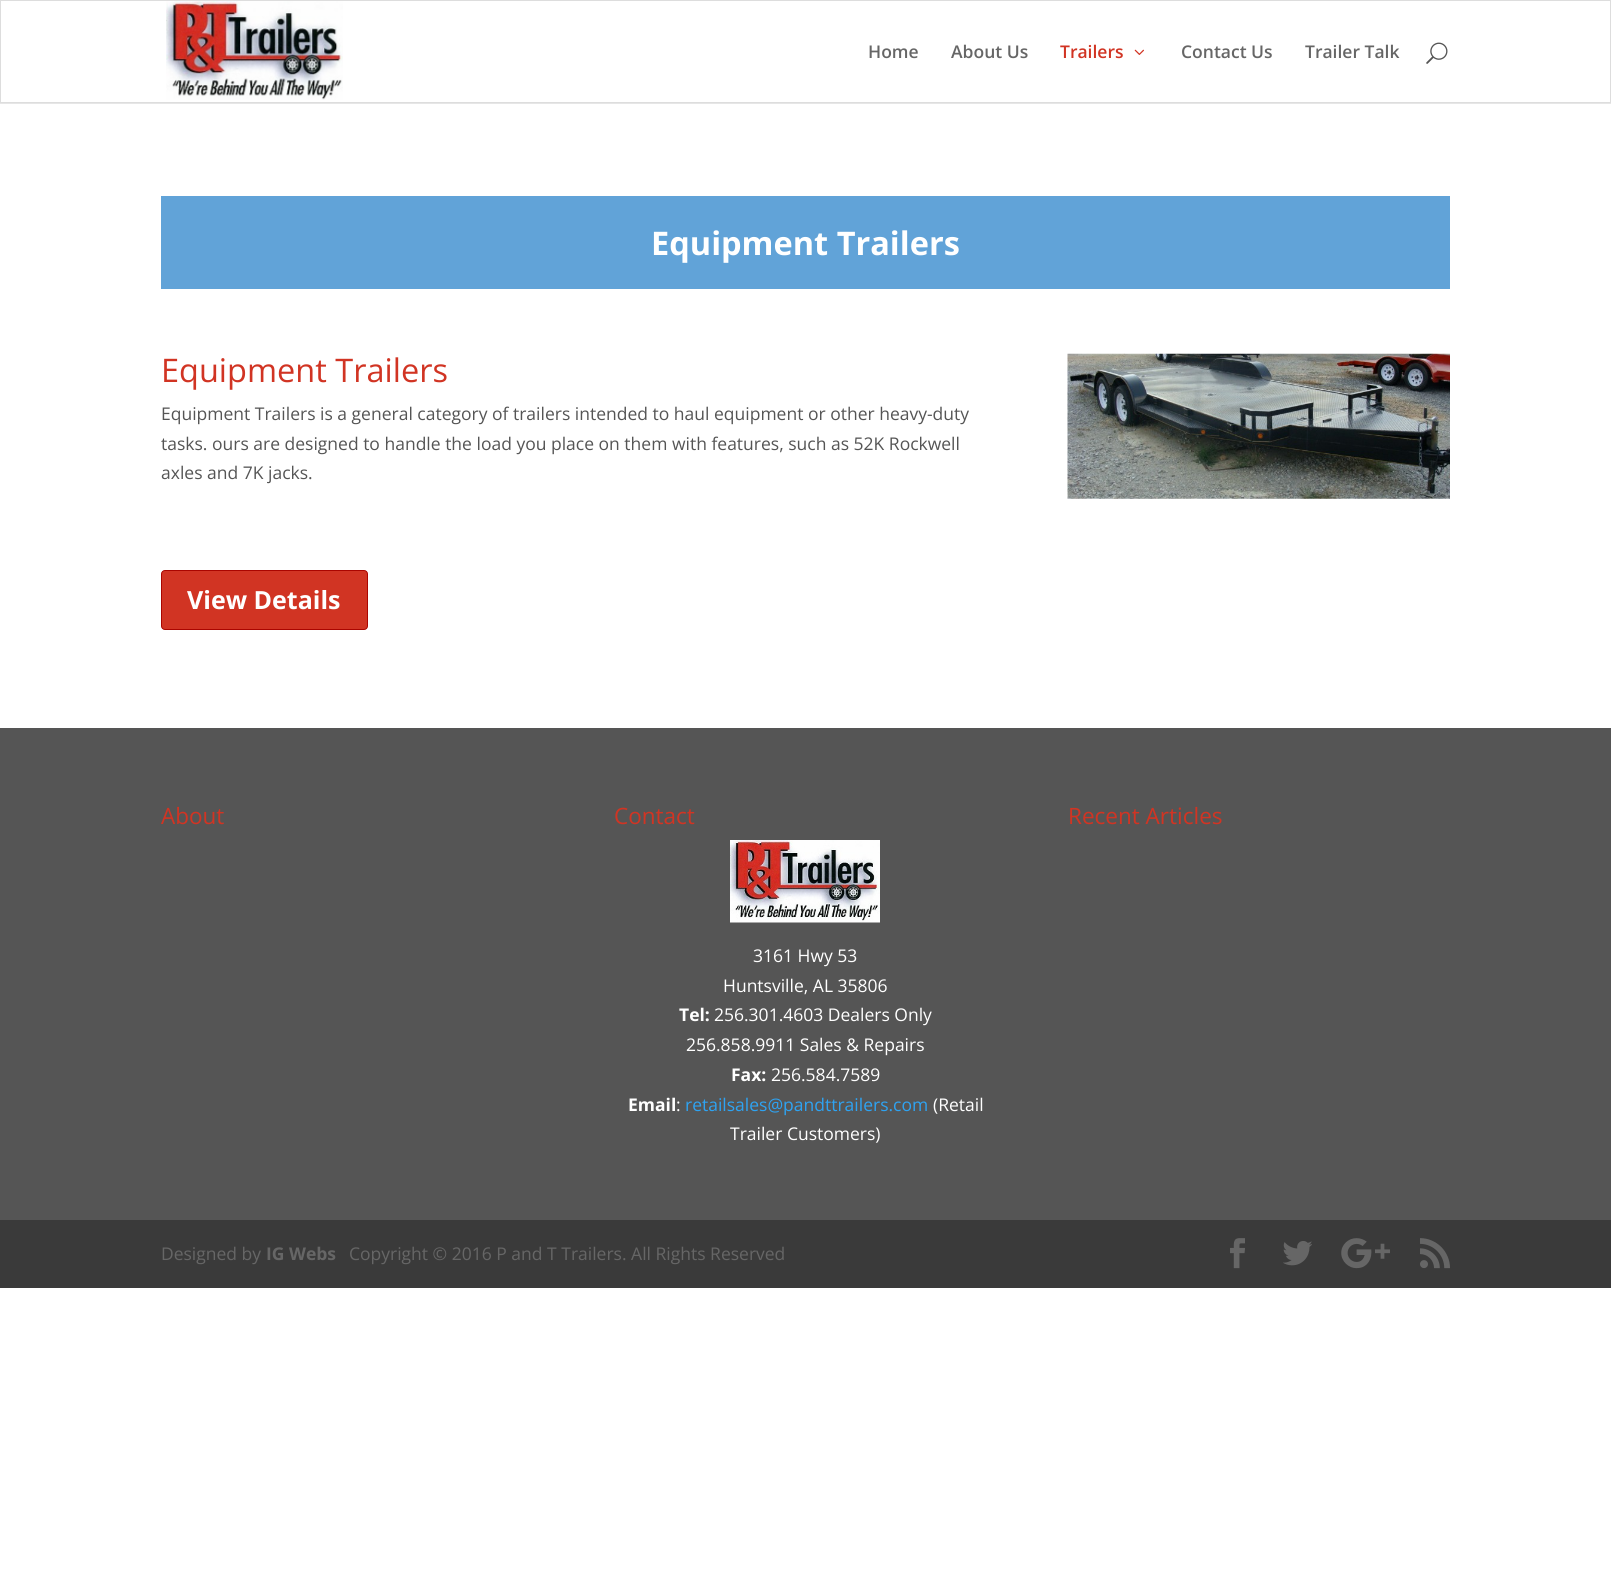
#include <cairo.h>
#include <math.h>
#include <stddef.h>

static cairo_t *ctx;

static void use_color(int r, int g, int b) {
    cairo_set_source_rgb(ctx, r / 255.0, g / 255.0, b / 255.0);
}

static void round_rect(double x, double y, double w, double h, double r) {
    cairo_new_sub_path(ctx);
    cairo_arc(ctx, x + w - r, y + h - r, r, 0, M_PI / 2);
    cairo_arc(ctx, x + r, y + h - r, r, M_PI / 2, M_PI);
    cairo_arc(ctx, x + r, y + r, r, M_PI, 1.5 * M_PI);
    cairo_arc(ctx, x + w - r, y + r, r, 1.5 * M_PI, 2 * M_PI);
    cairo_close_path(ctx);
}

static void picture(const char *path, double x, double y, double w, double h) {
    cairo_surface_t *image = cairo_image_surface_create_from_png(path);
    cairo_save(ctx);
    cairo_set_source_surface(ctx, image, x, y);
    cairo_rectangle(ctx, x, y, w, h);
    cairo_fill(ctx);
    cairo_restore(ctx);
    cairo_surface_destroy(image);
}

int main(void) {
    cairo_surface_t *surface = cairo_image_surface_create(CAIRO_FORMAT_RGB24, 1611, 1590);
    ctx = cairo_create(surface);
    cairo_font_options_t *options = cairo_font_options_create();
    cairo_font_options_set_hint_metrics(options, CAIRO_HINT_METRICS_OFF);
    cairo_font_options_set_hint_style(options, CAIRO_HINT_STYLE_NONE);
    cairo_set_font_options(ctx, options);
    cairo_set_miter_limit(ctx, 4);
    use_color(255, 255, 255);
    cairo_paint(ctx);
    use_color(230, 230, 230);
    cairo_rectangle(ctx, 0, 103, 1611, 1);
    cairo_fill(ctx);
    cairo_rectangle(ctx, 0.5, 0.5, 1610, 102);
    use_color(221, 221, 221);
    cairo_set_line_width(ctx, 1);
    cairo_stroke(ctx);
    picture("img1.png", 166, 1, 177, 99);
    cairo_select_font_face(ctx, "Open Sans SemiBold", CAIRO_FONT_SLANT_NORMAL, CAIRO_FONT_WEIGHT_NORMAL);
    cairo_set_font_size(ctx, 17.5);
    use_color(102, 102, 102);
    cairo_move_to(ctx, 868, 58);
    cairo_show_text(ctx, "Home");
    cairo_move_to(ctx, 951, 58);
    cairo_show_text(ctx, "About Us");
    use_color(209, 52, 35);
    cairo_move_to(ctx, 1060, 58);
    cairo_show_text(ctx, "Trailers");
    picture("img2.png", 1134, 49, 10, 6);
    use_color(102, 102, 102);
    cairo_move_to(ctx, 1181, 58);
    cairo_show_text(ctx, "Contact Us");
    cairo_move_to(ctx, 1305, 58);
    cairo_show_text(ctx, "Trailer Talk");
    picture("img3.png", 1426, 42, 22, 22);
    use_color(97, 163, 216);
    cairo_rectangle(ctx, 161, 196, 1289, 93);
    cairo_fill(ctx);
    cairo_select_font_face(ctx, "Open Sans", CAIRO_FONT_SLANT_NORMAL, CAIRO_FONT_WEIGHT_BOLD);
    cairo_set_font_size(ctx, 32.5);
    use_color(255, 255, 255);
    cairo_move_to(ctx, 651, 255);
    cairo_show_text(ctx, "Equipment Trailers");
    cairo_select_font_face(ctx, "Open Sans", CAIRO_FONT_SLANT_NORMAL, CAIRO_FONT_WEIGHT_NORMAL);
    use_color(209, 52, 35);
    cairo_move_to(ctx, 161, 382);
    cairo_show_text(ctx, "Equipment Trailers");
    cairo_set_font_size(ctx, 17.5);
    use_color(85, 85, 85);
    cairo_move_to(ctx, 161, 420);
    cairo_show_text(ctx, "Equipment Trailers is a general category of trailers intended to haul equipment or other heavy-duty");
    cairo_move_to(ctx, 161, 450);
    cairo_show_text(ctx, "tasks. ours are designed to handle the load you place on them with features, such as 52K Rockwell");
    cairo_move_to(ctx, 161, 479);
    cairo_show_text(ctx, "axles and 7K jacks.");
    use_color(209, 52, 35);
    round_rect(161.5, 570.5, 206, 59, 3.5);
    cairo_fill_preserve(ctx);
    use_color(170, 5, 0);
    cairo_stroke(ctx);
    cairo_select_font_face(ctx, "Open Sans", CAIRO_FONT_SLANT_NORMAL, CAIRO_FONT_WEIGHT_BOLD);
    cairo_set_font_size(ctx, 25);
    use_color(255, 255, 255);
    cairo_move_to(ctx, 187, 609);
    cairo_show_text(ctx, "View Details");
    picture("img4.png", 1067, 353, 383, 146);
    use_color(85, 85, 85);
    cairo_rectangle(ctx, 0, 728, 1611, 492);
    cairo_fill(ctx);
    cairo_select_font_face(ctx, "Open Sans", CAIRO_FONT_SLANT_NORMAL, CAIRO_FONT_WEIGHT_NORMAL);
    cairo_set_font_size(ctx, 22.5);
    use_color(209, 52, 35);
    cairo_move_to(ctx, 161, 824);
    cairo_show_text(ctx, "About");
    cairo_move_to(ctx, 614, 824);
    cairo_show_text(ctx, "Contact");
    picture("img5.png", 730, 840, 150, 83);
    cairo_set_font_size(ctx, 17.5);
    use_color(255, 255, 255);
    cairo_move_to(ctx, 753, 962);
    cairo_show_text(ctx, "3161 Hwy 53");
    cairo_move_to(ctx, 723, 992);
    cairo_show_text(ctx, "Huntsville, AL 35806");
    cairo_select_font_face(ctx, "Open Sans", CAIRO_FONT_SLANT_NORMAL, CAIRO_FONT_WEIGHT_BOLD);
    cairo_move_to(ctx, 679, 1021);
    cairo_show_text(ctx, "Tel:");
    cairo_select_font_face(ctx, "Open Sans", CAIRO_FONT_SLANT_NORMAL, CAIRO_FONT_WEIGHT_NORMAL);
    cairo_move_to(ctx, 714, 1021);
    cairo_show_text(ctx, "256.301.4603 Dealers Only");
    cairo_move_to(ctx, 686, 1051);
    cairo_show_text(ctx, "256.858.9911 Sales & Repairs");
    cairo_select_font_face(ctx, "Open Sans", CAIRO_FONT_SLANT_NORMAL, CAIRO_FONT_WEIGHT_BOLD);
    cairo_move_to(ctx, 731, 1081);
    cairo_show_text(ctx, "Fax:");
    cairo_select_font_face(ctx, "Open Sans", CAIRO_FONT_SLANT_NORMAL, CAIRO_FONT_WEIGHT_NORMAL);
    cairo_move_to(ctx, 771, 1081);
    cairo_show_text(ctx, "256.584.7589");
    cairo_select_font_face(ctx, "Open Sans", CAIRO_FONT_SLANT_NORMAL, CAIRO_FONT_WEIGHT_BOLD);
    cairo_move_to(ctx, 628, 1111);
    cairo_show_text(ctx, "Email");
    cairo_select_font_face(ctx, "Open Sans", CAIRO_FONT_SLANT_NORMAL, CAIRO_FONT_WEIGHT_NORMAL);
    cairo_move_to(ctx, 676, 1111);
    cairo_show_text(ctx, ":");
    use_color(46, 163, 242);
    cairo_move_to(ctx, 685, 1111);
    cairo_show_text(ctx, "retailsales@pandttrailers.com");
    use_color(255, 255, 255);
    cairo_move_to(ctx, 933, 1111);
    cairo_show_text(ctx, "(Retail");
    cairo_move_to(ctx, 730, 1140);
    cairo_show_text(ctx, "Trailer Customers)");
    cairo_set_font_size(ctx, 22.5);
    use_color(209, 52, 35);
    cairo_move_to(ctx, 1068, 824);
    cairo_show_text(ctx, "Recent Articles");
    use_color(58, 58, 58);
    cairo_rectangle(ctx, 0, 1220, 1611, 68);
    cairo_fill(ctx);
    cairo_set_font_size(ctx, 17.5);
    use_color(102, 102, 102);
    cairo_move_to(ctx, 161, 1260);
    cairo_show_text(ctx, "Designed by");
    cairo_select_font_face(ctx, "Open Sans", CAIRO_FONT_SLANT_NORMAL, CAIRO_FONT_WEIGHT_BOLD);
    cairo_move_to(ctx, 266, 1260);
    cairo_show_text(ctx, "IG Webs");
    cairo_select_font_face(ctx, "Open Sans", CAIRO_FONT_SLANT_NORMAL, CAIRO_FONT_WEIGHT_NORMAL);
    cairo_move_to(ctx, 349, 1260);
    cairo_show_text(ctx, "Copyright © 2016 P and T Trailers. All Rights Reserved");
    picture("img6.png", 1230, 1238, 15, 31);
    picture("img7.png", 1283, 1241, 29, 25);
    picture("img8.png", 1341, 1238, 49, 31);
    picture("img9.png", 1420, 1238, 30, 31);
    cairo_surface_write_to_png(surface, "result.png");
    cairo_font_options_destroy(options);
    cairo_destroy(ctx);
    cairo_surface_destroy(surface);
    return 0;
}
